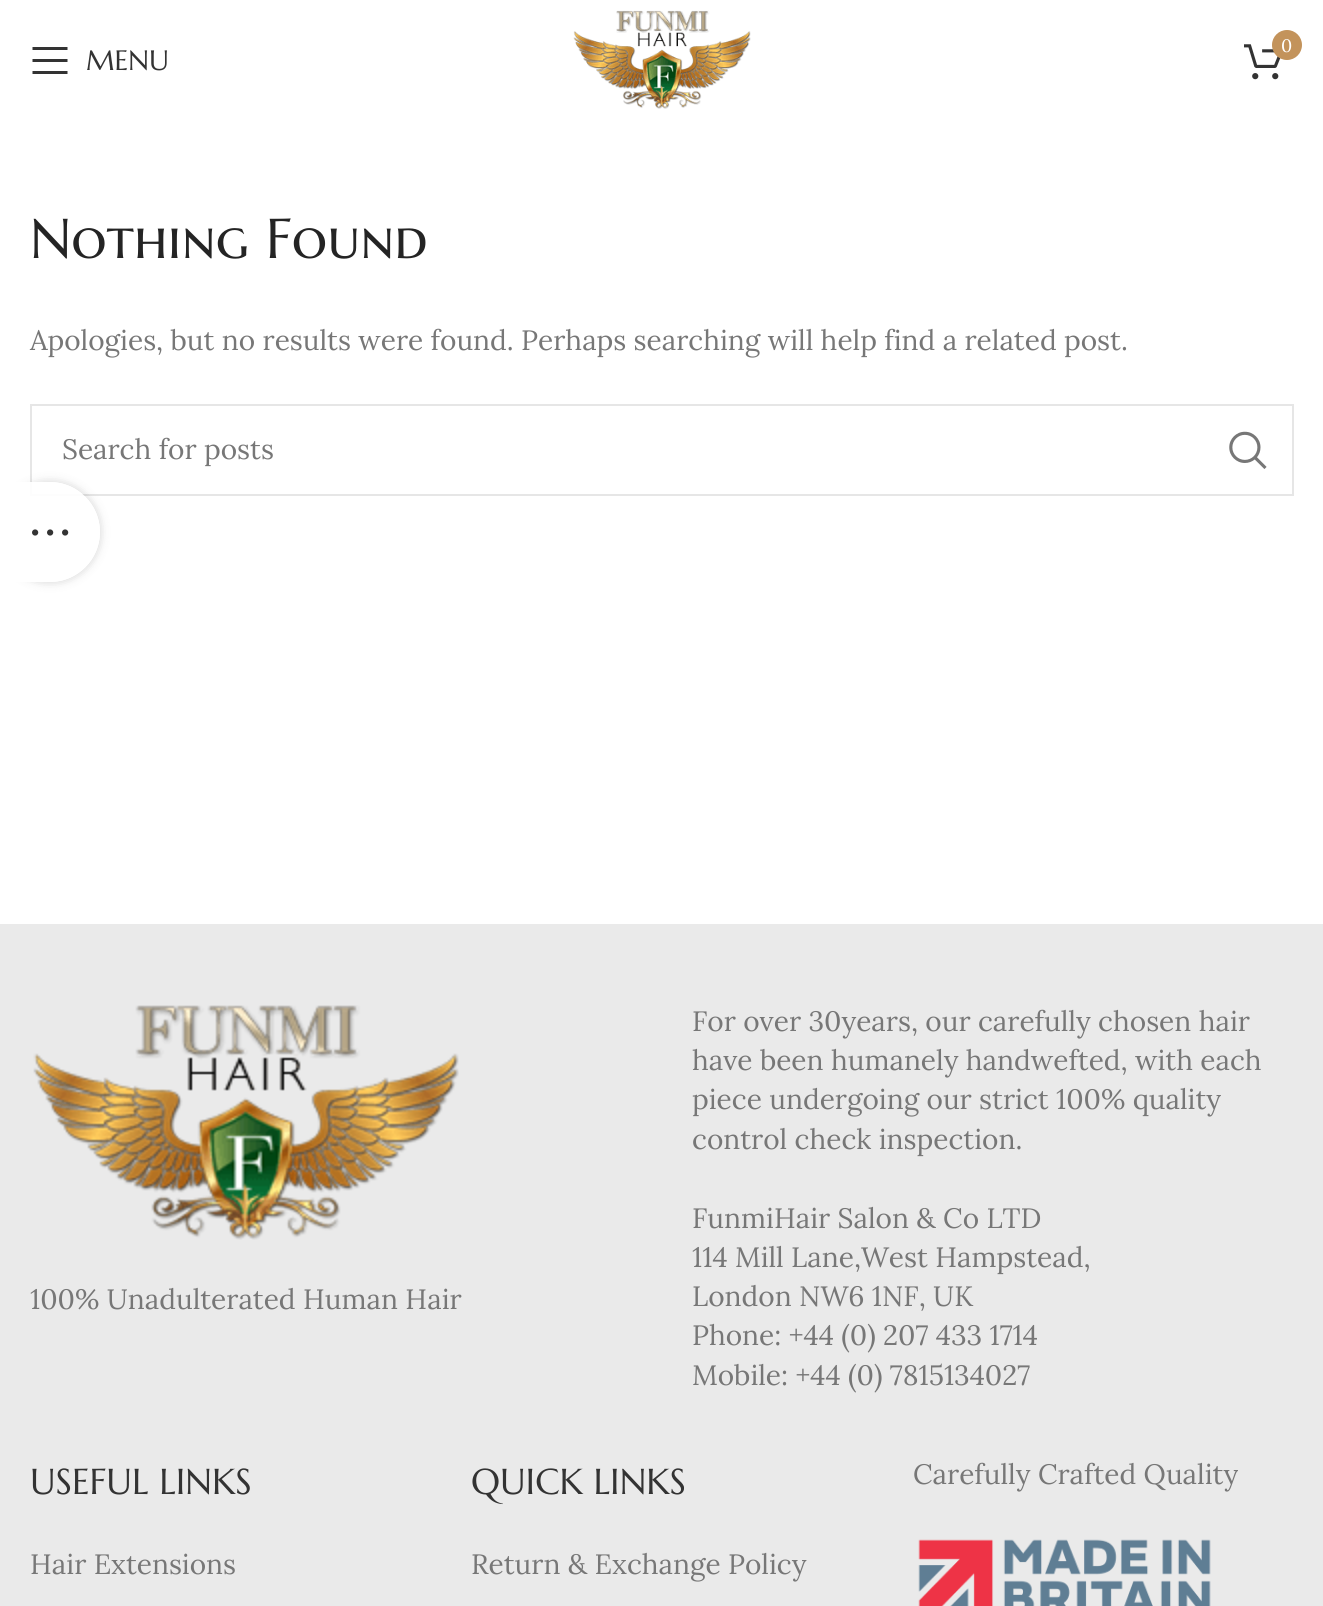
#include <cairo.h>
#include <math.h>
#include <stddef.h>

static cairo_t *ctx;

static void use_color(int r, int g, int b) {
    cairo_set_source_rgb(ctx, r / 255.0, g / 255.0, b / 255.0);
}

static void round_rect(double x, double y, double w, double h, double r) {
    cairo_new_sub_path(ctx);
    cairo_arc(ctx, x + w - r, y + h - r, r, 0, M_PI / 2);
    cairo_arc(ctx, x + r, y + h - r, r, M_PI / 2, M_PI);
    cairo_arc(ctx, x + r, y + r, r, M_PI, 1.5 * M_PI);
    cairo_arc(ctx, x + w - r, y + r, r, 1.5 * M_PI, 2 * M_PI);
    cairo_close_path(ctx);
}

static void shadow(double x, double y, double w, double h, double r, double blur, double alpha) {
    cairo_push_group_with_content(ctx, CAIRO_CONTENT_ALPHA);
    cairo_set_operator(ctx, CAIRO_OPERATOR_SOURCE);
    for (int i = 15; i >= -15 && fmin(w, h) + blur * i / 3 > 0; i -= 2) {
        double e = blur * i / 6;
        cairo_set_source_rgba(ctx, 0, 0, 0, alpha * erfc((i - 1) / 8.5) / 2);
        round_rect(x - e, y - e, w + 2 * e, h + 2 * e, fmax(0, fmin(r + e + blur * .6, fmin(w, h) / 2 + e)));
        cairo_fill(ctx);
    }
    cairo_pattern_t *soft = cairo_pop_group(ctx);
    cairo_mask(ctx, soft);
    cairo_pattern_destroy(soft);
}

static void picture(const char *path, double x, double y, double w, double h) {
    cairo_surface_t *image = cairo_image_surface_create_from_png(path);
    cairo_save(ctx);
    cairo_set_source_surface(ctx, image, x, y);
    cairo_rectangle(ctx, x, y, w, h);
    cairo_fill(ctx);
    cairo_restore(ctx);
    cairo_surface_destroy(image);
}

int main(void) {
    cairo_surface_t *surface = cairo_image_surface_create(CAIRO_FORMAT_RGB24, 1323, 1606);
    ctx = cairo_create(surface);
    cairo_font_options_t *options = cairo_font_options_create();
    cairo_font_options_set_hint_metrics(options, CAIRO_HINT_METRICS_OFF);
    cairo_font_options_set_hint_style(options, CAIRO_HINT_STYLE_NONE);
    cairo_set_font_options(ctx, options);
    cairo_set_miter_limit(ctx, 4);
    use_color(255, 255, 255);
    cairo_paint(ctx);
    picture("img1.png", 573, 10, 178, 99);
    picture("img2.png", 1244, 44, 37, 36);
    use_color(195, 147, 91);
    cairo_arc(ctx, 1287, 45, 15, 0, 2 * M_PI);
    cairo_fill(ctx);
    cairo_select_font_face(ctx, "Lora", CAIRO_FONT_SLANT_NORMAL, CAIRO_FONT_WEIGHT_NORMAL);
    cairo_set_font_size(ctx, 18);
    use_color(255, 255, 255);
    cairo_move_to(ctx, 1281, 52);
    cairo_show_text(ctx, "0");
    use_color(51, 51, 51);
    cairo_new_path(ctx);
    cairo_move_to(ctx, 32.5, 50);
    cairo_line_to(ctx, 67.5, 50);
    cairo_line_to(ctx, 67.5, 47);
    cairo_line_to(ctx, 32.5, 47);
    cairo_close_path(ctx);
    cairo_move_to(ctx, 32.5, 62);
    cairo_line_to(ctx, 67.5, 62);
    cairo_line_to(ctx, 67.5, 59);
    cairo_line_to(ctx, 32.5, 59);
    cairo_close_path(ctx);
    cairo_move_to(ctx, 32.5, 74);
    cairo_line_to(ctx, 67.5, 74);
    cairo_line_to(ctx, 67.5, 71);
    cairo_line_to(ctx, 32.5, 71);
    cairo_close_path(ctx);
    cairo_fill(ctx);
    cairo_select_font_face(ctx, "Marcellus SC", CAIRO_FONT_SLANT_NORMAL, CAIRO_FONT_WEIGHT_NORMAL);
    cairo_set_font_size(ctx, 28);
    cairo_move_to(ctx, 86, 70);
    cairo_show_text(ctx, "MENU");
    cairo_set_font_size(ctx, 56);
    use_color(36, 36, 36);
    cairo_move_to(ctx, 30, 258);
    cairo_show_text(ctx, "Nothing Found");
    cairo_select_font_face(ctx, "Lora", CAIRO_FONT_SLANT_NORMAL, CAIRO_FONT_WEIGHT_NORMAL);
    cairo_set_font_size(ctx, 28);
    use_color(119, 119, 119);
    cairo_move_to(ctx, 30, 350);
    cairo_show_text(ctx, "Apologies, but no results were found. Perhaps searching will help find a related post.");
    cairo_rectangle(ctx, 31, 405, 1262, 90);
    use_color(230, 230, 230);
    cairo_stroke(ctx);
    use_color(119, 119, 119);
    cairo_move_to(ctx, 62, 459);
    cairo_show_text(ctx, "Search for posts");
    picture("img3.png", 1229, 431, 38, 38);
    use_color(234, 234, 234);
    cairo_rectangle(ctx, 0, 924, 1323, 682);
    cairo_fill(ctx);
    picture("img4.png", 33, 1005, 426, 235);
    use_color(119, 119, 119);
    cairo_move_to(ctx, 30, 1309);
    cairo_show_text(ctx, "100% Unadulterated Human Hair");
    cairo_move_to(ctx, 692, 1031);
    cairo_show_text(ctx, "For over 30years, our carefully chosen hair");
    cairo_move_to(ctx, 692, 1070);
    cairo_show_text(ctx, "have been humanely handwefted, with each");
    cairo_move_to(ctx, 692, 1109);
    cairo_show_text(ctx, "piece undergoing our strict 100% quality");
    cairo_move_to(ctx, 692, 1149);
    cairo_show_text(ctx, "control check inspection.");
    cairo_move_to(ctx, 692, 1228);
    cairo_show_text(ctx, "FunmiHair Salon & Co LTD");
    cairo_move_to(ctx, 692, 1267);
    cairo_show_text(ctx, "114 Mill Lane,West Hampstead,");
    cairo_move_to(ctx, 692, 1306);
    cairo_show_text(ctx, "London NW6 1NF, UK");
    cairo_move_to(ctx, 692, 1345);
    cairo_show_text(ctx, "Phone: +44 (0) 207 433 1714");
    cairo_move_to(ctx, 692, 1385);
    cairo_show_text(ctx, "Mobile: +44 (0) 7815134027");
    cairo_select_font_face(ctx, "Marcellus SC", CAIRO_FONT_SLANT_NORMAL, CAIRO_FONT_WEIGHT_NORMAL);
    cairo_set_font_size(ctx, 36);
    use_color(51, 51, 51);
    cairo_move_to(ctx, 30, 1494);
    cairo_show_text(ctx, "USEFUL LINKS");
    cairo_select_font_face(ctx, "Lora", CAIRO_FONT_SLANT_NORMAL, CAIRO_FONT_WEIGHT_NORMAL);
    cairo_set_font_size(ctx, 28);
    use_color(119, 119, 119);
    cairo_move_to(ctx, 30, 1574);
    cairo_show_text(ctx, "Hair Extensions");
    cairo_select_font_face(ctx, "Marcellus SC", CAIRO_FONT_SLANT_NORMAL, CAIRO_FONT_WEIGHT_NORMAL);
    cairo_set_font_size(ctx, 36);
    use_color(51, 51, 51);
    cairo_move_to(ctx, 471, 1494);
    cairo_show_text(ctx, "QUICK LINKS");
    cairo_select_font_face(ctx, "Lora", CAIRO_FONT_SLANT_NORMAL, CAIRO_FONT_WEIGHT_NORMAL);
    cairo_set_font_size(ctx, 28);
    use_color(119, 119, 119);
    cairo_move_to(ctx, 471, 1574);
    cairo_show_text(ctx, "Return & Exchange Policy");
    cairo_move_to(ctx, 913, 1484);
    cairo_show_text(ctx, "Carefully Crafted Quality");
    picture("img5.png", 918, 1539, 293, 67);
    cairo_save(ctx);
    cairo_set_fill_rule(ctx, CAIRO_FILL_RULE_EVEN_ODD);
    cairo_new_path(ctx);
    cairo_move_to(ctx, 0, 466);
    cairo_line_to(ctx, 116, 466);
    cairo_line_to(ctx, 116, 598);
    cairo_line_to(ctx, 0, 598);
    cairo_close_path(ctx);
    cairo_move_to(ctx, 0, 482);
    cairo_line_to(ctx, 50, 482);
    cairo_curve_to(ctx, 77.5, 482, 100, 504.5, 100, 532);
    cairo_curve_to(ctx, 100, 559.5, 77.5, 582, 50, 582);
    cairo_line_to(ctx, 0, 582);
    cairo_close_path(ctx);
    cairo_clip(ctx);
    use_color(0, 0, 0);
    shadow(0, 482, 100, 100, 50, 5, 0.17);
    cairo_restore(ctx);
    cairo_set_source_rgba(ctx, 1, 1, 1, 0.9);
    cairo_new_path(ctx);
    cairo_move_to(ctx, 0, 482);
    cairo_line_to(ctx, 50, 482);
    cairo_curve_to(ctx, 77.5, 482, 100, 504.5, 100, 532);
    cairo_curve_to(ctx, 100, 559.5, 77.5, 582, 50, 582);
    cairo_line_to(ctx, 0, 582);
    cairo_close_path(ctx);
    cairo_fill(ctx);
    picture("img6.png", 32, 529, 37, 7);
    cairo_surface_write_to_png(surface, "result.png");
    cairo_font_options_destroy(options);
    cairo_destroy(ctx);
    cairo_surface_destroy(surface);
    return 0;
}
